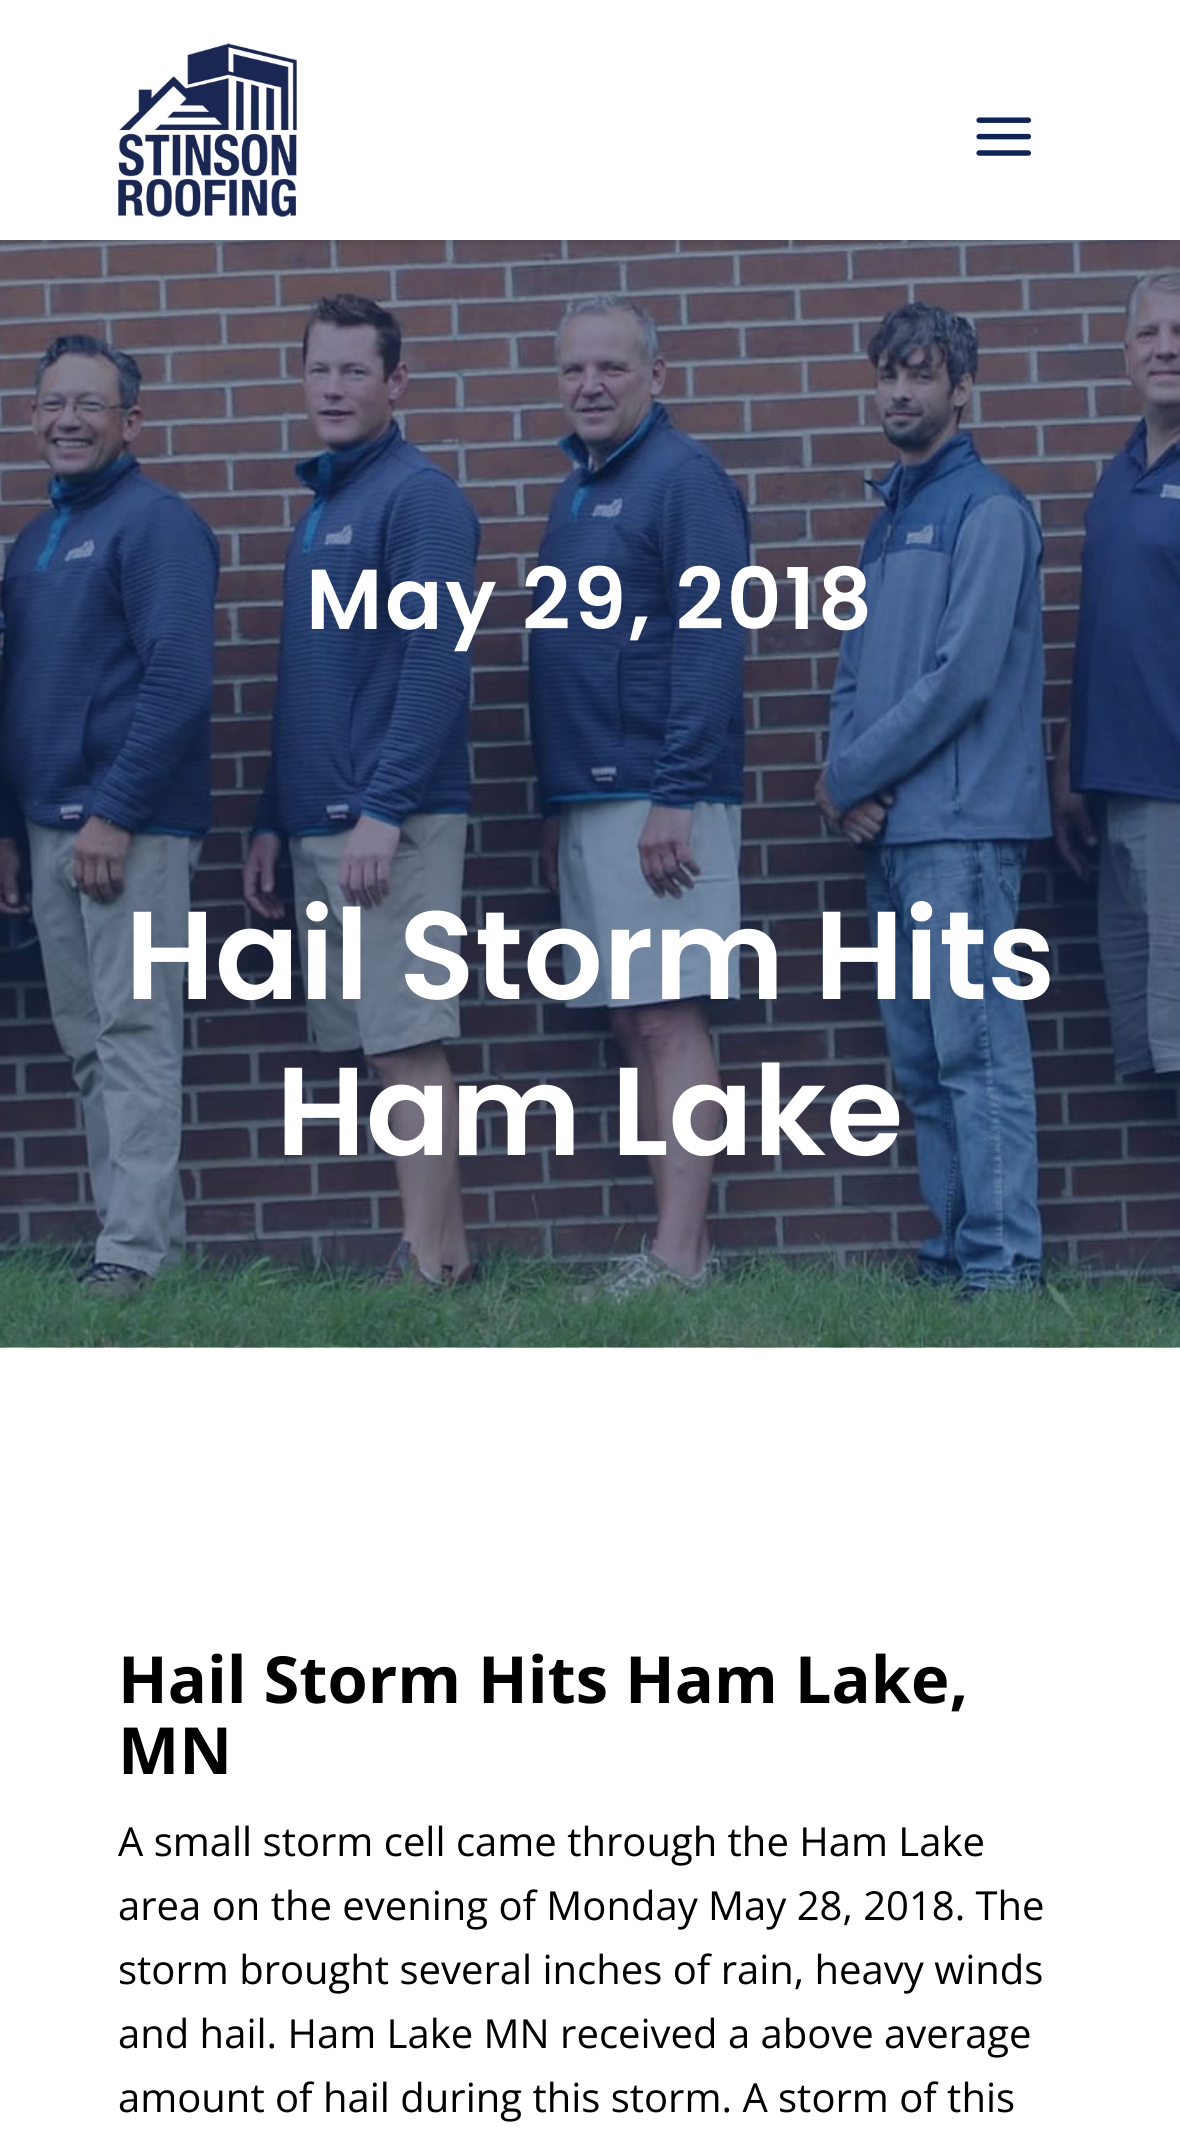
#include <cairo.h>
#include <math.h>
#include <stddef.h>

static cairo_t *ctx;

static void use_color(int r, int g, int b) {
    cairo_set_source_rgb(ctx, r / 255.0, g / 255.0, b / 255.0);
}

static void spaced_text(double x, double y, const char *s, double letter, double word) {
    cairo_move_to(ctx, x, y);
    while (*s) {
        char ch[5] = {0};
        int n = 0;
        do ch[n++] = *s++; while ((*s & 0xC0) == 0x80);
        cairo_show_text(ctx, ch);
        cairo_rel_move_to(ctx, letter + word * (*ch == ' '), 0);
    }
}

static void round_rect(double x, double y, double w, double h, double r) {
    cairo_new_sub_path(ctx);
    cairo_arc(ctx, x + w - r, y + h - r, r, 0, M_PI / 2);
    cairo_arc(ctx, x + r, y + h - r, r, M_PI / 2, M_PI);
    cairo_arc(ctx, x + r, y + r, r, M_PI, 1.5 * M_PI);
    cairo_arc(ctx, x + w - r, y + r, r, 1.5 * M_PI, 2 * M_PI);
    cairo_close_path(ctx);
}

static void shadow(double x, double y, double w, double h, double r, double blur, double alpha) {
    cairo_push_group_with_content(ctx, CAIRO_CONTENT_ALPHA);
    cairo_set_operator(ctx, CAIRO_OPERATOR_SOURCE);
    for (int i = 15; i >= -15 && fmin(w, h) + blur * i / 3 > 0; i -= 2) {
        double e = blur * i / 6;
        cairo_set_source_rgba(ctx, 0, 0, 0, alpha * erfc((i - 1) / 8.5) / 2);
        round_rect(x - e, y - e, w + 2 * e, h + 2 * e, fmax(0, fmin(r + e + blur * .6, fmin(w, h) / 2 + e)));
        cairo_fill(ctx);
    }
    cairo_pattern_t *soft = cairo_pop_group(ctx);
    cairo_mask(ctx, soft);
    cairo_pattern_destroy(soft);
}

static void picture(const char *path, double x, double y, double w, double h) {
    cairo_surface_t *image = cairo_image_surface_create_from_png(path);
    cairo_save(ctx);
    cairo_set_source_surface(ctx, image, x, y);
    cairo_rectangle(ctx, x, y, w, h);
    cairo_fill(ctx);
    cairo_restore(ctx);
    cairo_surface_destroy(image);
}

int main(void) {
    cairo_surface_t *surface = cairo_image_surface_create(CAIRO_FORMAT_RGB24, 1180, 2143);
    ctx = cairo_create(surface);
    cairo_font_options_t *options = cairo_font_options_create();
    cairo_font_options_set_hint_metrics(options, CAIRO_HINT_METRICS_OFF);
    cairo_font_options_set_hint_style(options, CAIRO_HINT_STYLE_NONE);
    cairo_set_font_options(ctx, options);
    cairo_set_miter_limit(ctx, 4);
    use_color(255, 255, 255);
    cairo_paint(ctx);
    picture("img3.png", 0, 1347, 1180, 1);
    picture("img4.png", 0, 240, 1180, 1108);
    cairo_save(ctx);
    cairo_rectangle(ctx, 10, 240, 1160, 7);
    cairo_clip(ctx);
    use_color(0, 0, 0);
    shadow(15, 28, 1150, 210, 0, 6, 0.3);
    cairo_restore(ctx);
    picture("img1.png", 118, 43, 179, 174);
    picture("img2.png", 976, 117, 56, 39);
    cairo_select_font_face(ctx, "Poppins SemiBold", CAIRO_FONT_SLANT_NORMAL, CAIRO_FONT_WEIGHT_NORMAL);
    cairo_set_font_size(ctx, 85);
    use_color(255, 255, 255);
    spaced_text(306, 629, "May 29, 2018", 2.5, 0);
    cairo_set_font_size(ctx, 125);
    cairo_move_to(ctx, 125, 999);
    cairo_show_text(ctx, "Hail Storm Hits");
    cairo_move_to(ctx, 276, 1155);
    cairo_show_text(ctx, "Ham Lake");
    cairo_select_font_face(ctx, "Open Sans", CAIRO_FONT_SLANT_NORMAL, CAIRO_FONT_WEIGHT_BOLD);
    cairo_set_font_size(ctx, 65);
    use_color(0, 0, 0);
    cairo_move_to(ctx, 118, 1703);
    cairo_show_text(ctx, "Hail Storm Hits Ham Lake,");
    cairo_move_to(ctx, 118, 1774);
    cairo_show_text(ctx, "MN");
    cairo_select_font_face(ctx, "Open Sans", CAIRO_FONT_SLANT_NORMAL, CAIRO_FONT_WEIGHT_NORMAL);
    cairo_set_font_size(ctx, 40);
    cairo_move_to(ctx, 118, 1856);
    cairo_show_text(ctx, "A small storm cell came through the Ham Lake");
    cairo_move_to(ctx, 118, 1920);
    cairo_show_text(ctx, "area on the evening of Monday May 28, 2018. The");
    cairo_move_to(ctx, 118, 1984);
    cairo_show_text(ctx, "storm brought several inches of rain, heavy winds");
    cairo_move_to(ctx, 118, 2048);
    cairo_show_text(ctx, "and hail. Ham Lake MN received a above average");
    cairo_move_to(ctx, 118, 2112);
    cairo_show_text(ctx, "amount of hail during this storm. A storm of this");
    cairo_surface_write_to_png(surface, "result.png");
    cairo_font_options_destroy(options);
    cairo_destroy(ctx);
    cairo_surface_destroy(surface);
    return 0;
}
